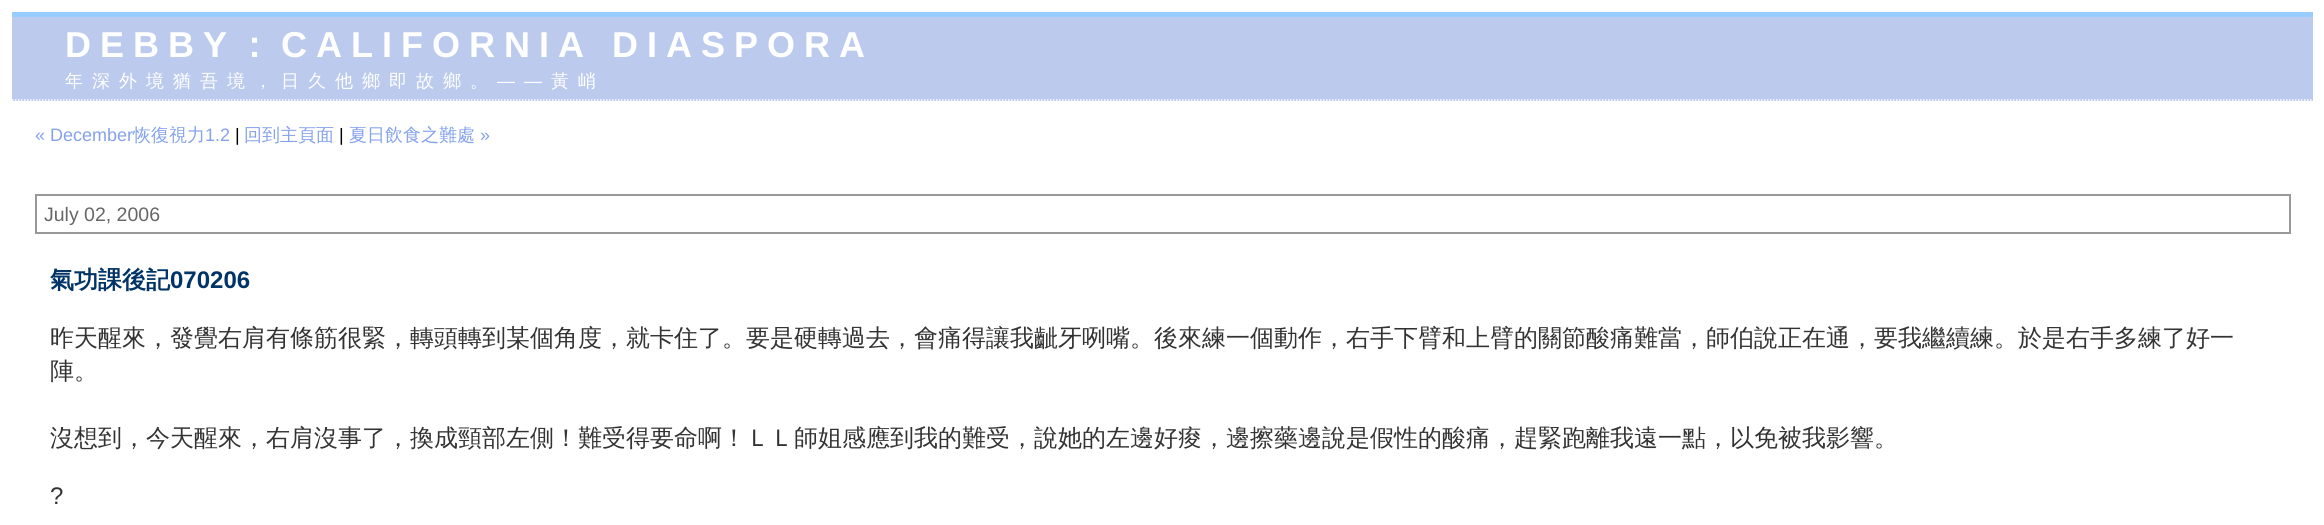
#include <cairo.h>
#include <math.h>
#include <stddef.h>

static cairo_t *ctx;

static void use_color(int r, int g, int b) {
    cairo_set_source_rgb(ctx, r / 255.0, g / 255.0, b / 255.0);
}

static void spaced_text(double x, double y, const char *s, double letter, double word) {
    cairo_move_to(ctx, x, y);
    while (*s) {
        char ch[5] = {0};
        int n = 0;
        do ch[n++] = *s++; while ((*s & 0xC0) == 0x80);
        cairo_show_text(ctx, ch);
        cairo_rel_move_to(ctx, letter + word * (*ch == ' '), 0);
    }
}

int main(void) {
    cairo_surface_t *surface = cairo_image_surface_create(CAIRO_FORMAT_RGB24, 2324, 525);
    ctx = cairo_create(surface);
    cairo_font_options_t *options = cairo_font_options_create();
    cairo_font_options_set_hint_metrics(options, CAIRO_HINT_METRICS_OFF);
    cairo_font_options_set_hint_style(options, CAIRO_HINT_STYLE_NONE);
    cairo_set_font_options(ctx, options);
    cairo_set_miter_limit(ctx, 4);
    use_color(255, 255, 255);
    cairo_paint(ctx);
    use_color(188, 202, 238);
    cairo_rectangle(ctx, 12, 17, 2301, 84);
    cairo_fill(ctx);
    use_color(153, 204, 255);
    cairo_rectangle(ctx, 12, 12, 2301, 5);
    cairo_fill(ctx);
    cairo_new_path(ctx);
    cairo_move_to(ctx, 12, 100);
    cairo_line_to(ctx, 2313, 100);
    use_color(255, 255, 255);
    cairo_set_line_width(ctx, 1.5);
    cairo_set_dash(ctx, (double[]){1.5, 1.5}, 2, 0);
    cairo_stroke(ctx);
    cairo_select_font_face(ctx, "Liberation Sans", CAIRO_FONT_SLANT_NORMAL, CAIRO_FONT_WEIGHT_BOLD);
    cairo_set_font_size(ctx, 36);
    spaced_text(65, 57, "DEBBY", 9, 0);
    cairo_select_font_face(ctx, "WenQuanYi Zen Hei", CAIRO_FONT_SLANT_NORMAL, CAIRO_FONT_WEIGHT_BOLD);
    spaced_text(236, 57, "：", 9, 0);
    cairo_select_font_face(ctx, "Liberation Sans", CAIRO_FONT_SLANT_NORMAL, CAIRO_FONT_WEIGHT_BOLD);
    spaced_text(281, 57, "CALIFORNIA DIASPORA", 9, 0);
    cairo_select_font_face(ctx, "WenQuanYi Zen Hei Medium", CAIRO_FONT_SLANT_NORMAL, CAIRO_FONT_WEIGHT_NORMAL);
    cairo_set_font_size(ctx, 18);
    spaced_text(65, 87, "年深外境猶吾境，日久他鄉即故鄉。", 9, 0);
    cairo_select_font_face(ctx, "Liberation Sans", CAIRO_FONT_SLANT_NORMAL, CAIRO_FONT_WEIGHT_NORMAL);
    spaced_text(497, 87, "——", 9, 0);
    cairo_select_font_face(ctx, "WenQuanYi Zen Hei Medium", CAIRO_FONT_SLANT_NORMAL, CAIRO_FONT_WEIGHT_NORMAL);
    spaced_text(551, 87, "黃峭", 9, 0);
    cairo_select_font_face(ctx, "Liberation Sans", CAIRO_FONT_SLANT_NORMAL, CAIRO_FONT_WEIGHT_NORMAL);
    use_color(132, 162, 236);
    cairo_move_to(ctx, 35, 141);
    cairo_show_text(ctx, "« December");
    cairo_select_font_face(ctx, "WenQuanYi Zen Hei Medium", CAIRO_FONT_SLANT_NORMAL, CAIRO_FONT_WEIGHT_NORMAL);
    cairo_move_to(ctx, 133, 141);
    cairo_show_text(ctx, "恢復視力");
    cairo_select_font_face(ctx, "Liberation Sans", CAIRO_FONT_SLANT_NORMAL, CAIRO_FONT_WEIGHT_NORMAL);
    cairo_move_to(ctx, 205, 141);
    cairo_show_text(ctx, "1.2");
    use_color(0, 0, 0);
    cairo_move_to(ctx, 235, 141);
    cairo_show_text(ctx, "|");
    cairo_select_font_face(ctx, "WenQuanYi Zen Hei Medium", CAIRO_FONT_SLANT_NORMAL, CAIRO_FONT_WEIGHT_NORMAL);
    use_color(132, 162, 236);
    cairo_move_to(ctx, 244, 141);
    cairo_show_text(ctx, "回到主頁面");
    cairo_select_font_face(ctx, "Liberation Sans", CAIRO_FONT_SLANT_NORMAL, CAIRO_FONT_WEIGHT_NORMAL);
    use_color(0, 0, 0);
    cairo_move_to(ctx, 339, 141);
    cairo_show_text(ctx, "|");
    cairo_select_font_face(ctx, "WenQuanYi Zen Hei Medium", CAIRO_FONT_SLANT_NORMAL, CAIRO_FONT_WEIGHT_NORMAL);
    use_color(132, 162, 236);
    cairo_move_to(ctx, 349, 141);
    cairo_show_text(ctx, "夏日飲食之難處");
    cairo_select_font_face(ctx, "Liberation Sans", CAIRO_FONT_SLANT_NORMAL, CAIRO_FONT_WEIGHT_NORMAL);
    cairo_move_to(ctx, 480, 141);
    cairo_show_text(ctx, "»");
    cairo_rectangle(ctx, 36, 195, 2254, 38);
    use_color(153, 153, 153);
    cairo_set_line_width(ctx, 2);
    cairo_set_dash(ctx, NULL, 0, 0);
    cairo_stroke(ctx);
    cairo_set_font_size(ctx, 19.5);
    use_color(102, 102, 102);
    cairo_move_to(ctx, 44, 221);
    cairo_show_text(ctx, "July 02, 2006");
    cairo_select_font_face(ctx, "WenQuanYi Zen Hei", CAIRO_FONT_SLANT_NORMAL, CAIRO_FONT_WEIGHT_BOLD);
    cairo_set_font_size(ctx, 24);
    use_color(0, 51, 102);
    cairo_move_to(ctx, 50, 288);
    cairo_show_text(ctx, "氣功課後記");
    cairo_select_font_face(ctx, "Liberation Sans", CAIRO_FONT_SLANT_NORMAL, CAIRO_FONT_WEIGHT_BOLD);
    cairo_move_to(ctx, 170, 288);
    cairo_show_text(ctx, "070206");
    cairo_select_font_face(ctx, "WenQuanYi Zen Hei Medium", CAIRO_FONT_SLANT_NORMAL, CAIRO_FONT_WEIGHT_NORMAL);
    use_color(51, 51, 51);
    cairo_move_to(ctx, 50, 346);
    cairo_show_text(ctx, "昨天醒來，發覺右肩有條筋很緊，轉頭轉到某個角度，就卡住了。要是硬轉過去，會痛得讓我齜牙咧嘴。後來練一個動作，右手下臂和上臂的關節酸痛難當，師伯說正在通，要我繼續練。於是右手多練了好一");
    cairo_move_to(ctx, 50, 379);
    cairo_show_text(ctx, "陣。");
    cairo_move_to(ctx, 50, 446);
    cairo_show_text(ctx, "沒想到，今天醒來，右肩沒事了，換成頸部左側！難受得要命啊！ＬＬ師姐感應到我的難受，說她的左邊好痠，邊擦藥邊說是假性的酸痛，趕緊跑離我遠一點，以免被我影響。");
    cairo_select_font_face(ctx, "Liberation Sans", CAIRO_FONT_SLANT_NORMAL, CAIRO_FONT_WEIGHT_NORMAL);
    cairo_move_to(ctx, 50, 504);
    cairo_show_text(ctx, "?");
    cairo_surface_write_to_png(surface, "result.png");
    cairo_font_options_destroy(options);
    cairo_destroy(ctx);
    cairo_surface_destroy(surface);
    return 0;
}
